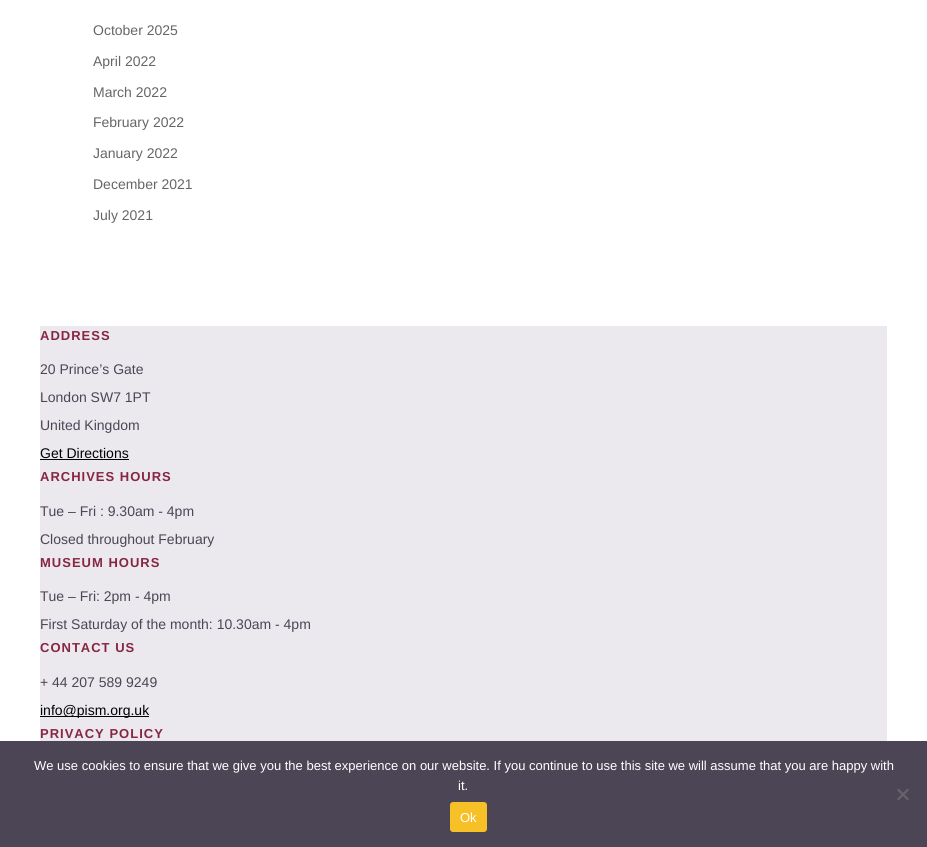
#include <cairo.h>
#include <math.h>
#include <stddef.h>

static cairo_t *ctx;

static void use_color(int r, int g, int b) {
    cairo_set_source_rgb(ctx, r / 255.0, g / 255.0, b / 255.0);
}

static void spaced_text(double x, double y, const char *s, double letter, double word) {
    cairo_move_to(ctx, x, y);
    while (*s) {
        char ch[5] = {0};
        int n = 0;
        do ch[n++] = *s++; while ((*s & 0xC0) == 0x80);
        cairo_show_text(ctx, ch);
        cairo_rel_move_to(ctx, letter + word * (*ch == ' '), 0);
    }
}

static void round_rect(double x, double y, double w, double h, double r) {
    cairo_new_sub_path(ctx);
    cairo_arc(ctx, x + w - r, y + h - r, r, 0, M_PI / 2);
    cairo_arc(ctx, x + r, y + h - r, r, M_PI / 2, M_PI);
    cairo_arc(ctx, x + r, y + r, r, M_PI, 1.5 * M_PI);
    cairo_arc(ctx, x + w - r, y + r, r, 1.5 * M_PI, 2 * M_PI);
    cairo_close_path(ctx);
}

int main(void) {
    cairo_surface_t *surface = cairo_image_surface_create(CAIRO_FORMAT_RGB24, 927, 847);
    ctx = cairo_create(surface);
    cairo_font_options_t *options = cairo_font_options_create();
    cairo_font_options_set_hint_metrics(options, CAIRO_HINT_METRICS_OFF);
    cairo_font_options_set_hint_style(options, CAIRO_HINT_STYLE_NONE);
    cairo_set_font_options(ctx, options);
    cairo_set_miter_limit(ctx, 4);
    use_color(255, 255, 255);
    cairo_paint(ctx);
    cairo_select_font_face(ctx, "Liberation Sans", CAIRO_FONT_SLANT_NORMAL, CAIRO_FONT_WEIGHT_NORMAL);
    cairo_set_font_size(ctx, 14);
    use_color(102, 102, 102);
    cairo_move_to(ctx, 93, 35);
    cairo_show_text(ctx, "October 2025");
    cairo_move_to(ctx, 93, 66);
    cairo_show_text(ctx, "April 2022");
    cairo_move_to(ctx, 93, 97);
    cairo_show_text(ctx, "March 2022");
    cairo_move_to(ctx, 93, 127);
    cairo_show_text(ctx, "February 2022");
    cairo_move_to(ctx, 93, 158);
    cairo_show_text(ctx, "January 2022");
    cairo_move_to(ctx, 93, 189);
    cairo_show_text(ctx, "December 2021");
    cairo_move_to(ctx, 93, 220);
    cairo_show_text(ctx, "July 2021");
    use_color(235, 233, 238);
    cairo_rectangle(ctx, 40, 326, 847, 415);
    cairo_fill(ctx);
    cairo_select_font_face(ctx, "Liberation Sans", CAIRO_FONT_SLANT_NORMAL, CAIRO_FONT_WEIGHT_BOLD);
    cairo_set_font_size(ctx, 13);
    use_color(135, 38, 66);
    spaced_text(40, 340, "ADDRESS", 1, 0);
    cairo_select_font_face(ctx, "Liberation Sans", CAIRO_FONT_SLANT_NORMAL, CAIRO_FONT_WEIGHT_NORMAL);
    cairo_set_font_size(ctx, 14);
    use_color(76, 69, 86);
    cairo_move_to(ctx, 40, 374);
    cairo_show_text(ctx, "20 Prince’s Gate");
    cairo_move_to(ctx, 40, 402);
    cairo_show_text(ctx, "London SW7 1PT");
    cairo_move_to(ctx, 40, 430);
    cairo_show_text(ctx, "United Kingdom");
    use_color(0, 0, 0);
    cairo_move_to(ctx, 40, 458);
    cairo_show_text(ctx, "Get Directions");
    cairo_rectangle(ctx, 40, 459, 89, 1);
    cairo_fill(ctx);
    cairo_select_font_face(ctx, "Liberation Sans", CAIRO_FONT_SLANT_NORMAL, CAIRO_FONT_WEIGHT_BOLD);
    cairo_set_font_size(ctx, 13);
    use_color(135, 38, 66);
    spaced_text(40, 481, "ARCHIVES HOURS", 1, 0);
    cairo_select_font_face(ctx, "Liberation Sans", CAIRO_FONT_SLANT_NORMAL, CAIRO_FONT_WEIGHT_NORMAL);
    cairo_set_font_size(ctx, 14);
    use_color(76, 69, 86);
    cairo_move_to(ctx, 40, 516);
    cairo_show_text(ctx, "Tue – Fri : 9.30am - 4pm");
    cairo_move_to(ctx, 40, 544);
    cairo_show_text(ctx, "Closed throughout February");
    cairo_select_font_face(ctx, "Liberation Sans", CAIRO_FONT_SLANT_NORMAL, CAIRO_FONT_WEIGHT_BOLD);
    cairo_set_font_size(ctx, 13);
    use_color(135, 38, 66);
    spaced_text(40, 567, "MUSEUM HOURS", 1, 0);
    cairo_select_font_face(ctx, "Liberation Sans", CAIRO_FONT_SLANT_NORMAL, CAIRO_FONT_WEIGHT_NORMAL);
    cairo_set_font_size(ctx, 14);
    use_color(76, 69, 86);
    cairo_move_to(ctx, 40, 601);
    cairo_show_text(ctx, "Tue – Fri: 2pm - 4pm");
    cairo_move_to(ctx, 40, 629);
    cairo_show_text(ctx, "First Saturday of the month: 10.30am - 4pm");
    cairo_select_font_face(ctx, "Liberation Sans", CAIRO_FONT_SLANT_NORMAL, CAIRO_FONT_WEIGHT_BOLD);
    cairo_set_font_size(ctx, 13);
    use_color(135, 38, 66);
    spaced_text(40, 652, "CONTACT US", 1, 0);
    cairo_select_font_face(ctx, "Liberation Sans", CAIRO_FONT_SLANT_NORMAL, CAIRO_FONT_WEIGHT_NORMAL);
    cairo_set_font_size(ctx, 14);
    use_color(76, 69, 86);
    cairo_move_to(ctx, 40, 687);
    cairo_show_text(ctx, "+ 44 207 589 9249");
    use_color(0, 0, 0);
    cairo_rectangle(ctx, 40, 716, 109, 1);
    cairo_fill(ctx);
    cairo_move_to(ctx, 40, 715);
    cairo_show_text(ctx, "info@pism.org.uk");
    cairo_select_font_face(ctx, "Liberation Sans", CAIRO_FONT_SLANT_NORMAL, CAIRO_FONT_WEIGHT_BOLD);
    cairo_set_font_size(ctx, 13);
    use_color(135, 38, 66);
    spaced_text(40, 738, "PRIVACY POLICY", 1, 0);
    use_color(76, 69, 86);
    cairo_rectangle(ctx, 0, 741, 927, 106);
    cairo_fill(ctx);
    cairo_select_font_face(ctx, "Liberation Sans", CAIRO_FONT_SLANT_NORMAL, CAIRO_FONT_WEIGHT_NORMAL);
    use_color(255, 255, 255);
    cairo_move_to(ctx, 34, 770);
    cairo_show_text(ctx, "We use cookies to ensure that we give you the best experience on our website. If you continue to use this site we will assume that you are happy with");
    cairo_move_to(ctx, 458, 790);
    cairo_show_text(ctx, "it.");
    use_color(102, 99, 107);
    cairo_new_path(ctx);
    cairo_move_to(ctx, 907.5, 788.5);
    cairo_line_to(ctx, 909, 790);
    cairo_line_to(ctx, 898.5, 800.5);
    cairo_line_to(ctx, 897, 799);
    cairo_close_path(ctx);
    cairo_fill(ctx);
    cairo_new_path(ctx);
    cairo_move_to(ctx, 897, 790);
    cairo_line_to(ctx, 898.5, 788.5);
    cairo_line_to(ctx, 909, 799);
    cairo_line_to(ctx, 907.5, 800.5);
    cairo_close_path(ctx);
    cairo_fill(ctx);
    use_color(246, 192, 38);
    round_rect(450, 802, 37, 30, 3);
    cairo_fill(ctx);
    use_color(255, 255, 255);
    cairo_move_to(ctx, 460, 822);
    cairo_show_text(ctx, "Ok");
    cairo_surface_write_to_png(surface, "result.png");
    cairo_font_options_destroy(options);
    cairo_destroy(ctx);
    cairo_surface_destroy(surface);
    return 0;
}
